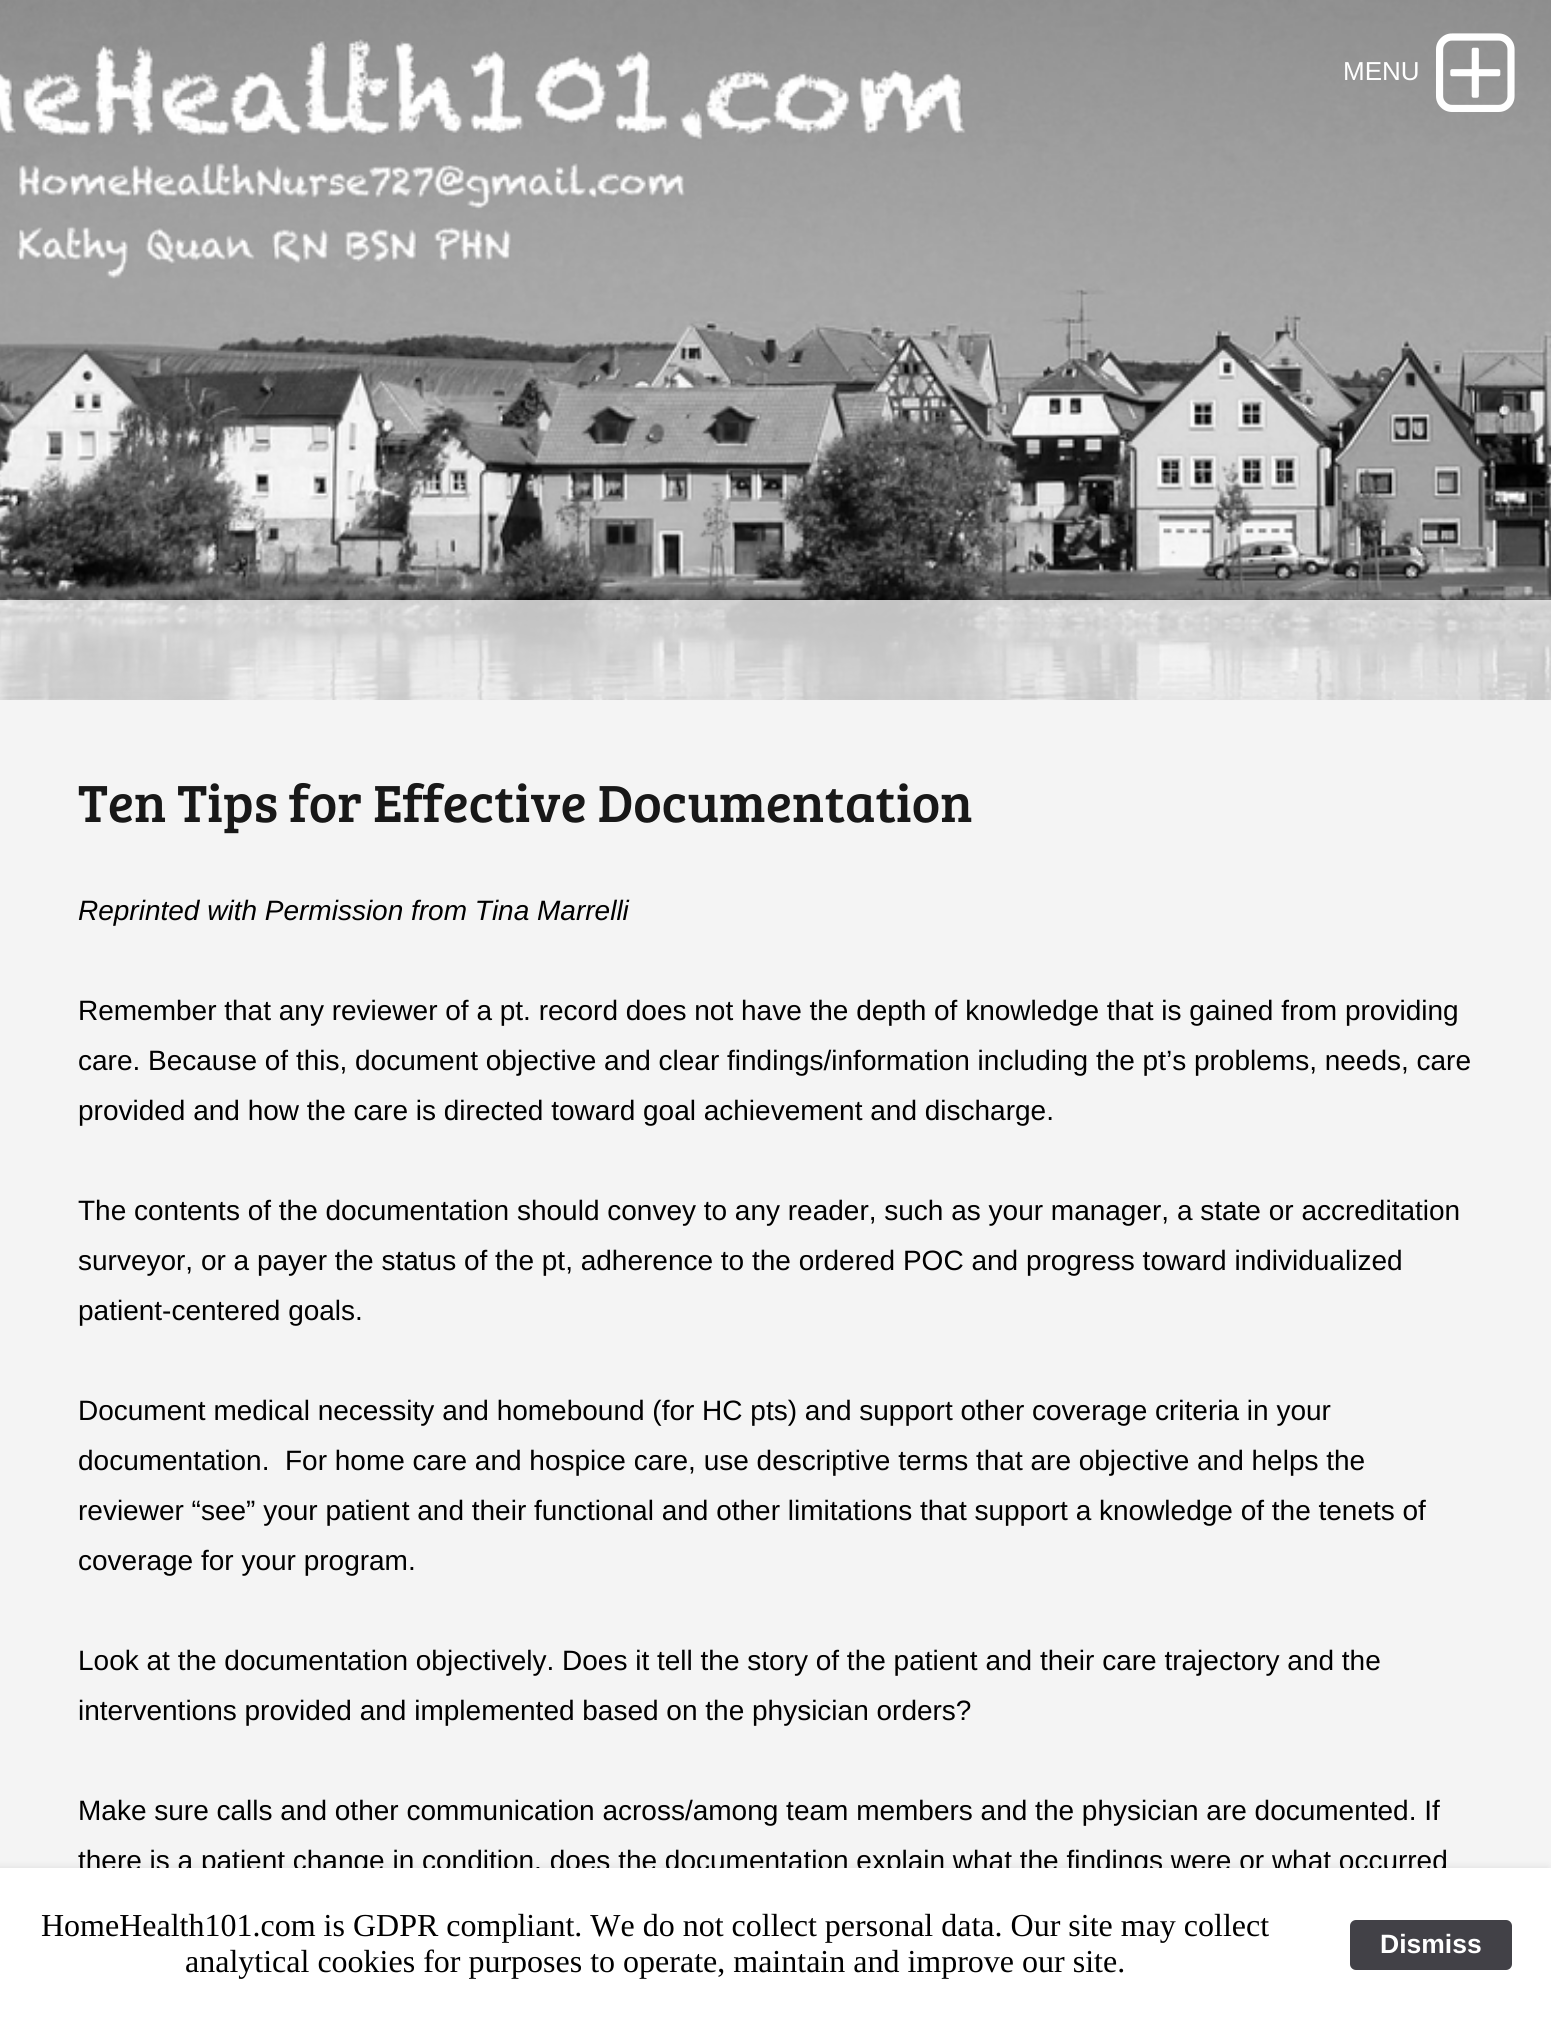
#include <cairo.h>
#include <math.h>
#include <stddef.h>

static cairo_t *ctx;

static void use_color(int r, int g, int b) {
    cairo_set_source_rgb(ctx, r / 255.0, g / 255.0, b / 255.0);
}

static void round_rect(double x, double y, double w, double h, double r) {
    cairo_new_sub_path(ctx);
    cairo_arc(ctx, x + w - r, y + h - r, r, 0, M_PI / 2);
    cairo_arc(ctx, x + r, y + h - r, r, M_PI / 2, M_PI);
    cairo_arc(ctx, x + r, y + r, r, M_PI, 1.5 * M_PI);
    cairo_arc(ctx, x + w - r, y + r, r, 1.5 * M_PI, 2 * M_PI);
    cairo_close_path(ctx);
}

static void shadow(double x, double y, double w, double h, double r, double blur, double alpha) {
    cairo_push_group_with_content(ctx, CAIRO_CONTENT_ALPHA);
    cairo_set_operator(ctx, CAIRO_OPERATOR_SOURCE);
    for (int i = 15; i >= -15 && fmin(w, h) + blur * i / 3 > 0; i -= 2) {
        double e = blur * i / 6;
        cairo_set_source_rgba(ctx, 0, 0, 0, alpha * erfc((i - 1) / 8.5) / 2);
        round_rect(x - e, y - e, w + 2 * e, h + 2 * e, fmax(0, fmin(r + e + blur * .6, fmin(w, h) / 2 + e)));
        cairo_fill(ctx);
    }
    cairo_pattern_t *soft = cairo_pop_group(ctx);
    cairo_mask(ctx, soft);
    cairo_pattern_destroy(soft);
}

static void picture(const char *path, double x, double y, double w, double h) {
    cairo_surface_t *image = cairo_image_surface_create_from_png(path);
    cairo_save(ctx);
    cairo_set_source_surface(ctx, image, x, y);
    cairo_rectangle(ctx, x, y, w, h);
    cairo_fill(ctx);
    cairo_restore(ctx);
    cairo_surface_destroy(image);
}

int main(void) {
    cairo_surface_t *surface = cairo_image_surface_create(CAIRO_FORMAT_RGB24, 1551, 2020);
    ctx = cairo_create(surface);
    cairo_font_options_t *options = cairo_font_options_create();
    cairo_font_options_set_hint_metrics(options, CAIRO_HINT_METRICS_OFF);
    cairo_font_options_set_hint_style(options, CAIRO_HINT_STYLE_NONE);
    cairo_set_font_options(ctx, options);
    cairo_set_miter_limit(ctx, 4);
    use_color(255, 255, 255);
    cairo_paint(ctx);
    picture("img1.png", 0, 0, 1551, 700);
    cairo_save(ctx);
    cairo_rectangle(ctx, 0, 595, 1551, 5);
    cairo_clip(ctx);
    use_color(0, 0, 0);
    shadow(0, 604, 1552, 200, 0, 6, 0.3);
    cairo_restore(ctx);
    cairo_set_source_rgba(ctx, 0.957, 0.957, 0.957, 0.8);
    cairo_rectangle(ctx, 0, 600, 1551, 100);
    cairo_fill(ctx);
    cairo_select_font_face(ctx, "Liberation Sans", CAIRO_FONT_SLANT_NORMAL, CAIRO_FONT_WEIGHT_NORMAL);
    cairo_set_font_size(ctx, 26);
    use_color(255, 255, 255);
    cairo_move_to(ctx, 1343, 80);
    cairo_show_text(ctx, "MENU");
    picture("img2.png", 1436, 33, 79, 79);
    use_color(0, 0, 0);
    shadow(0, 710, 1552, 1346, 0, 12, 0.11);
    use_color(244, 244, 244);
    cairo_rectangle(ctx, 0, 700, 1551, 1168);
    cairo_fill(ctx);
    cairo_select_font_face(ctx, "Bree Serif", CAIRO_FONT_SLANT_NORMAL, CAIRO_FONT_WEIGHT_NORMAL);
    cairo_set_font_size(ctx, 54);
    use_color(24, 24, 24);
    cairo_move_to(ctx, 78, 822);
    cairo_show_text(ctx, "Ten Tips for Effective Documentation");
    cairo_select_font_face(ctx, "Liberation Sans", CAIRO_FONT_SLANT_ITALIC, CAIRO_FONT_WEIGHT_NORMAL);
    cairo_set_font_size(ctx, 28);
    use_color(0, 0, 0);
    cairo_move_to(ctx, 78, 920);
    cairo_show_text(ctx, "Reprinted with Permission from Tina Marrelli");
    cairo_select_font_face(ctx, "Liberation Sans", CAIRO_FONT_SLANT_NORMAL, CAIRO_FONT_WEIGHT_NORMAL);
    cairo_move_to(ctx, 78, 1020);
    cairo_show_text(ctx, "Remember that any reviewer of a pt. record does not have the depth of knowledge that is gained from providing");
    cairo_move_to(ctx, 78, 1070);
    cairo_show_text(ctx, "care. Because of this, document objective and clear findings/information including the pt’s problems, needs, care");
    cairo_move_to(ctx, 78, 1120);
    cairo_show_text(ctx, "provided and how the care is directed toward goal achievement and discharge.");
    cairo_move_to(ctx, 78, 1220);
    cairo_show_text(ctx, "The contents of the documentation should convey to any reader, such as your manager, a state or accreditation");
    cairo_move_to(ctx, 78, 1270);
    cairo_show_text(ctx, "surveyor, or a payer the status of the pt, adherence to the ordered POC and progress toward individualized");
    cairo_move_to(ctx, 78, 1320);
    cairo_show_text(ctx, "patient-centered goals.");
    cairo_move_to(ctx, 78, 1420);
    cairo_show_text(ctx, "Document medical necessity and homebound (for HC pts) and support other coverage criteria in your");
    cairo_move_to(ctx, 78, 1470);
    cairo_show_text(ctx, "documentation.  For home care and hospice care, use descriptive terms that are objective and helps the");
    cairo_move_to(ctx, 78, 1520);
    cairo_show_text(ctx, "reviewer “see” your patient and their functional and other limitations that support a knowledge of the tenets of");
    cairo_move_to(ctx, 78, 1570);
    cairo_show_text(ctx, "coverage for your program.");
    cairo_move_to(ctx, 78, 1670);
    cairo_show_text(ctx, "Look at the documentation objectively. Does it tell the story of the patient and their care trajectory and the");
    cairo_move_to(ctx, 78, 1720);
    cairo_show_text(ctx, "interventions provided and implemented based on the physician orders?");
    cairo_move_to(ctx, 78, 1820);
    cairo_show_text(ctx, "Make sure calls and other communication across/among team members and the physician are documented. If");
    cairo_move_to(ctx, 78, 1870);
    cairo_show_text(ctx, "there is a patient change in condition, does the documentation explain what the findings were or what occurred");
    use_color(0, 0, 0);
    shadow(-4, 1868, 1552, 152, 0, 4, 0.1);
    use_color(255, 255, 255);
    cairo_rectangle(ctx, 0, 1868, 1551, 152);
    cairo_fill(ctx);
    cairo_select_font_face(ctx, "Liberation Serif", CAIRO_FONT_SLANT_NORMAL, CAIRO_FONT_WEIGHT_NORMAL);
    cairo_set_font_size(ctx, 32);
    use_color(0, 0, 0);
    cairo_move_to(ctx, 41, 1936);
    cairo_show_text(ctx, "HomeHealth101.com is GDPR compliant. We do not collect personal data. Our site may collect");
    cairo_move_to(ctx, 185, 1972);
    cairo_show_text(ctx, "analytical cookies for purposes to operate, maintain and improve our site.");
    use_color(66, 65, 71);
    round_rect(1350, 1920, 162, 50, 6);
    cairo_fill(ctx);
    cairo_select_font_face(ctx, "Liberation Sans", CAIRO_FONT_SLANT_NORMAL, CAIRO_FONT_WEIGHT_BOLD);
    cairo_set_font_size(ctx, 26.5);
    use_color(255, 255, 255);
    cairo_move_to(ctx, 1380, 1953);
    cairo_show_text(ctx, "Dismiss");
    cairo_surface_write_to_png(surface, "result.png");
    cairo_font_options_destroy(options);
    cairo_destroy(ctx);
    cairo_surface_destroy(surface);
    return 0;
}
